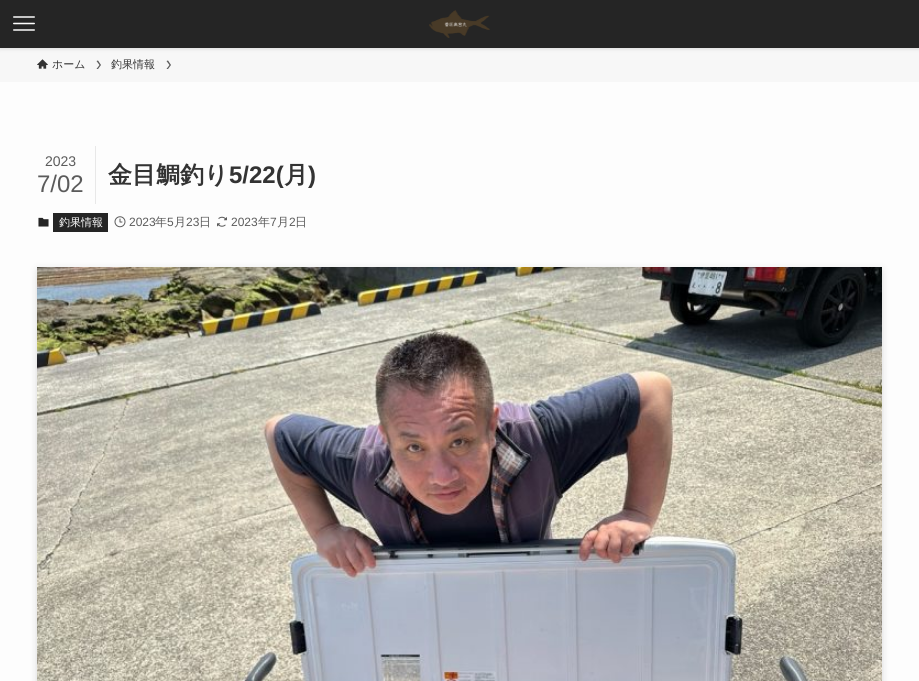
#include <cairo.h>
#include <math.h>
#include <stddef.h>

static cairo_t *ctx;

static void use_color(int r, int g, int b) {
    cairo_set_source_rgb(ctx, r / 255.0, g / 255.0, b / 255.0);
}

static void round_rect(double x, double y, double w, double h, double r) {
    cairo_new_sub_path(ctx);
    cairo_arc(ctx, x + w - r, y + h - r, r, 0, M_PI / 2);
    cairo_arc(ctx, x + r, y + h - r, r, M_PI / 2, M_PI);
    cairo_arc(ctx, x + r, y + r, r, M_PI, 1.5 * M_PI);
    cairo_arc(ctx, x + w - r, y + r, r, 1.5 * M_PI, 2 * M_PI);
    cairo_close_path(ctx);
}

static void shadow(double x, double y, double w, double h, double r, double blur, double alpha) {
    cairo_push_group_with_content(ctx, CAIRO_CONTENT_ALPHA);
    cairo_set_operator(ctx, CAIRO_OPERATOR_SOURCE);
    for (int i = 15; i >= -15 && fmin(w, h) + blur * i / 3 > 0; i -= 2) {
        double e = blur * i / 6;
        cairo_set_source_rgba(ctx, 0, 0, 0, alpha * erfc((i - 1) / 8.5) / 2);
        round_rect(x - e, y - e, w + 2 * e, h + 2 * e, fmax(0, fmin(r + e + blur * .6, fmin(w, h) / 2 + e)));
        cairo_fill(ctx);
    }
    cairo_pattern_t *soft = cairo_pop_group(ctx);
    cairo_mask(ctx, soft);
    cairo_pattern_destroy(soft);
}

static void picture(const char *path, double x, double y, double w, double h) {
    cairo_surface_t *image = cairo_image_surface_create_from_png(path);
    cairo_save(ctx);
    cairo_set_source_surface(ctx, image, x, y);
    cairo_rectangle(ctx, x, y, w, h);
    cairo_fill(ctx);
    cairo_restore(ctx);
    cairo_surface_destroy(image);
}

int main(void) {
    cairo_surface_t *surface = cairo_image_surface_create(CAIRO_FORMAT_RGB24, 919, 681);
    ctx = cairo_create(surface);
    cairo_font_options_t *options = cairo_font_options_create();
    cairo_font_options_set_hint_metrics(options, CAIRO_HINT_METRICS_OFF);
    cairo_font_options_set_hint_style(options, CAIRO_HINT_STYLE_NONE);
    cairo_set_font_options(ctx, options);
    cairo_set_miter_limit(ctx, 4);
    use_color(253, 253, 253);
    cairo_paint(ctx);
    use_color(247, 247, 247);
    cairo_rectangle(ctx, 0, 48, 919, 34);
    cairo_fill(ctx);
    use_color(0, 0, 0);
    shadow(0, 1, 919, 48, 0, 2, 0.12);
    use_color(37, 37, 37);
    cairo_rectangle(ctx, 0, 0, 919, 48);
    cairo_fill(ctx);
    picture("img1.png", 13, 16, 22, 15);
    picture("img2.png", 429, 10, 61, 28);
    picture("img3.png", 37, 59, 11, 10);
    cairo_select_font_face(ctx, "WenQuanYi Zen Hei Medium", CAIRO_FONT_SLANT_NORMAL, CAIRO_FONT_WEIGHT_NORMAL);
    cairo_set_font_size(ctx, 11);
    use_color(51, 51, 51);
    cairo_move_to(ctx, 52, 68);
    cairo_show_text(ctx, "ホーム");
    use_color(90, 90, 90);
    cairo_new_path(ctx);
    cairo_move_to(ctx, 98, 60.5);
    cairo_line_to(ctx, 96.5, 61);
    cairo_line_to(ctx, 99.5, 65);
    cairo_line_to(ctx, 96.5, 69);
    cairo_line_to(ctx, 98, 69);
    cairo_line_to(ctx, 101, 65);
    cairo_close_path(ctx);
    cairo_fill(ctx);
    use_color(51, 51, 51);
    cairo_move_to(ctx, 111, 68);
    cairo_show_text(ctx, "釣果情報");
    use_color(90, 90, 90);
    cairo_new_path(ctx);
    cairo_move_to(ctx, 168, 60.5);
    cairo_line_to(ctx, 166.5, 61);
    cairo_line_to(ctx, 169.5, 65);
    cairo_line_to(ctx, 166.5, 69);
    cairo_line_to(ctx, 168, 69);
    cairo_line_to(ctx, 171, 65);
    cairo_close_path(ctx);
    cairo_fill(ctx);
    use_color(232, 232, 232);
    cairo_rectangle(ctx, 95, 146, 1, 58);
    cairo_fill(ctx);
    cairo_select_font_face(ctx, "Liberation Sans", CAIRO_FONT_SLANT_NORMAL, CAIRO_FONT_WEIGHT_NORMAL);
    cairo_set_font_size(ctx, 14);
    use_color(91, 91, 91);
    cairo_move_to(ctx, 45, 166);
    cairo_show_text(ctx, "2023");
    cairo_set_font_size(ctx, 24);
    cairo_move_to(ctx, 37, 192);
    cairo_show_text(ctx, "7/02");
    cairo_select_font_face(ctx, "WenQuanYi Zen Hei", CAIRO_FONT_SLANT_NORMAL, CAIRO_FONT_WEIGHT_BOLD);
    use_color(51, 51, 51);
    cairo_move_to(ctx, 108, 183);
    cairo_show_text(ctx, "金目鯛釣り");
    cairo_select_font_face(ctx, "Liberation Sans", CAIRO_FONT_SLANT_NORMAL, CAIRO_FONT_WEIGHT_BOLD);
    cairo_move_to(ctx, 229, 183);
    cairo_show_text(ctx, "5/22(");
    cairo_select_font_face(ctx, "WenQuanYi Zen Hei", CAIRO_FONT_SLANT_NORMAL, CAIRO_FONT_WEIGHT_BOLD);
    cairo_move_to(ctx, 284, 183);
    cairo_show_text(ctx, "月");
    cairo_select_font_face(ctx, "Liberation Sans", CAIRO_FONT_SLANT_NORMAL, CAIRO_FONT_WEIGHT_BOLD);
    cairo_move_to(ctx, 308, 183);
    cairo_show_text(ctx, ")");
    picture("img4.png", 38, 217, 11, 10);
    use_color(37, 37, 37);
    cairo_rectangle(ctx, 53, 213, 55, 19);
    cairo_fill(ctx);
    cairo_select_font_face(ctx, "WenQuanYi Zen Hei Medium", CAIRO_FONT_SLANT_NORMAL, CAIRO_FONT_WEIGHT_NORMAL);
    cairo_set_font_size(ctx, 11);
    use_color(255, 255, 255);
    cairo_move_to(ctx, 59, 226);
    cairo_show_text(ctx, "釣果情報");
    picture("img5.png", 114, 216, 12, 12);
    cairo_select_font_face(ctx, "Liberation Sans", CAIRO_FONT_SLANT_NORMAL, CAIRO_FONT_WEIGHT_NORMAL);
    cairo_set_font_size(ctx, 12);
    use_color(91, 91, 91);
    cairo_move_to(ctx, 129, 226);
    cairo_show_text(ctx, "2023");
    cairo_select_font_face(ctx, "WenQuanYi Zen Hei Medium", CAIRO_FONT_SLANT_NORMAL, CAIRO_FONT_WEIGHT_NORMAL);
    cairo_move_to(ctx, 155, 226);
    cairo_show_text(ctx, "年");
    cairo_select_font_face(ctx, "Liberation Sans", CAIRO_FONT_SLANT_NORMAL, CAIRO_FONT_WEIGHT_NORMAL);
    cairo_move_to(ctx, 167, 226);
    cairo_show_text(ctx, "5");
    cairo_select_font_face(ctx, "WenQuanYi Zen Hei Medium", CAIRO_FONT_SLANT_NORMAL, CAIRO_FONT_WEIGHT_NORMAL);
    cairo_move_to(ctx, 174, 226);
    cairo_show_text(ctx, "月");
    cairo_select_font_face(ctx, "Liberation Sans", CAIRO_FONT_SLANT_NORMAL, CAIRO_FONT_WEIGHT_NORMAL);
    cairo_move_to(ctx, 186, 226);
    cairo_show_text(ctx, "23");
    cairo_select_font_face(ctx, "WenQuanYi Zen Hei Medium", CAIRO_FONT_SLANT_NORMAL, CAIRO_FONT_WEIGHT_NORMAL);
    cairo_move_to(ctx, 199, 226);
    cairo_show_text(ctx, "日");
    picture("img6.png", 217, 216, 10, 11);
    cairo_select_font_face(ctx, "Liberation Sans", CAIRO_FONT_SLANT_NORMAL, CAIRO_FONT_WEIGHT_NORMAL);
    cairo_move_to(ctx, 231, 226);
    cairo_show_text(ctx, "2023");
    cairo_select_font_face(ctx, "WenQuanYi Zen Hei Medium", CAIRO_FONT_SLANT_NORMAL, CAIRO_FONT_WEIGHT_NORMAL);
    cairo_move_to(ctx, 258, 226);
    cairo_show_text(ctx, "年");
    cairo_select_font_face(ctx, "Liberation Sans", CAIRO_FONT_SLANT_NORMAL, CAIRO_FONT_WEIGHT_NORMAL);
    cairo_move_to(ctx, 270, 226);
    cairo_show_text(ctx, "7");
    cairo_select_font_face(ctx, "WenQuanYi Zen Hei Medium", CAIRO_FONT_SLANT_NORMAL, CAIRO_FONT_WEIGHT_NORMAL);
    cairo_move_to(ctx, 277, 226);
    cairo_show_text(ctx, "月");
    cairo_select_font_face(ctx, "Liberation Sans", CAIRO_FONT_SLANT_NORMAL, CAIRO_FONT_WEIGHT_NORMAL);
    cairo_move_to(ctx, 289, 226);
    cairo_show_text(ctx, "2");
    cairo_select_font_face(ctx, "WenQuanYi Zen Hei Medium", CAIRO_FONT_SLANT_NORMAL, CAIRO_FONT_WEIGHT_NORMAL);
    cairo_move_to(ctx, 295, 226);
    cairo_show_text(ctx, "日");
    use_color(0, 0, 0);
    shadow(41, 275, 837, 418, 0, 4, 0.2);
    shadow(37, 269, 845, 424, 0, 4, 0.1);
    picture("img7.png", 37, 267, 845, 414);
    cairo_surface_write_to_png(surface, "result.png");
    cairo_font_options_destroy(options);
    cairo_destroy(ctx);
    cairo_surface_destroy(surface);
    return 0;
}
